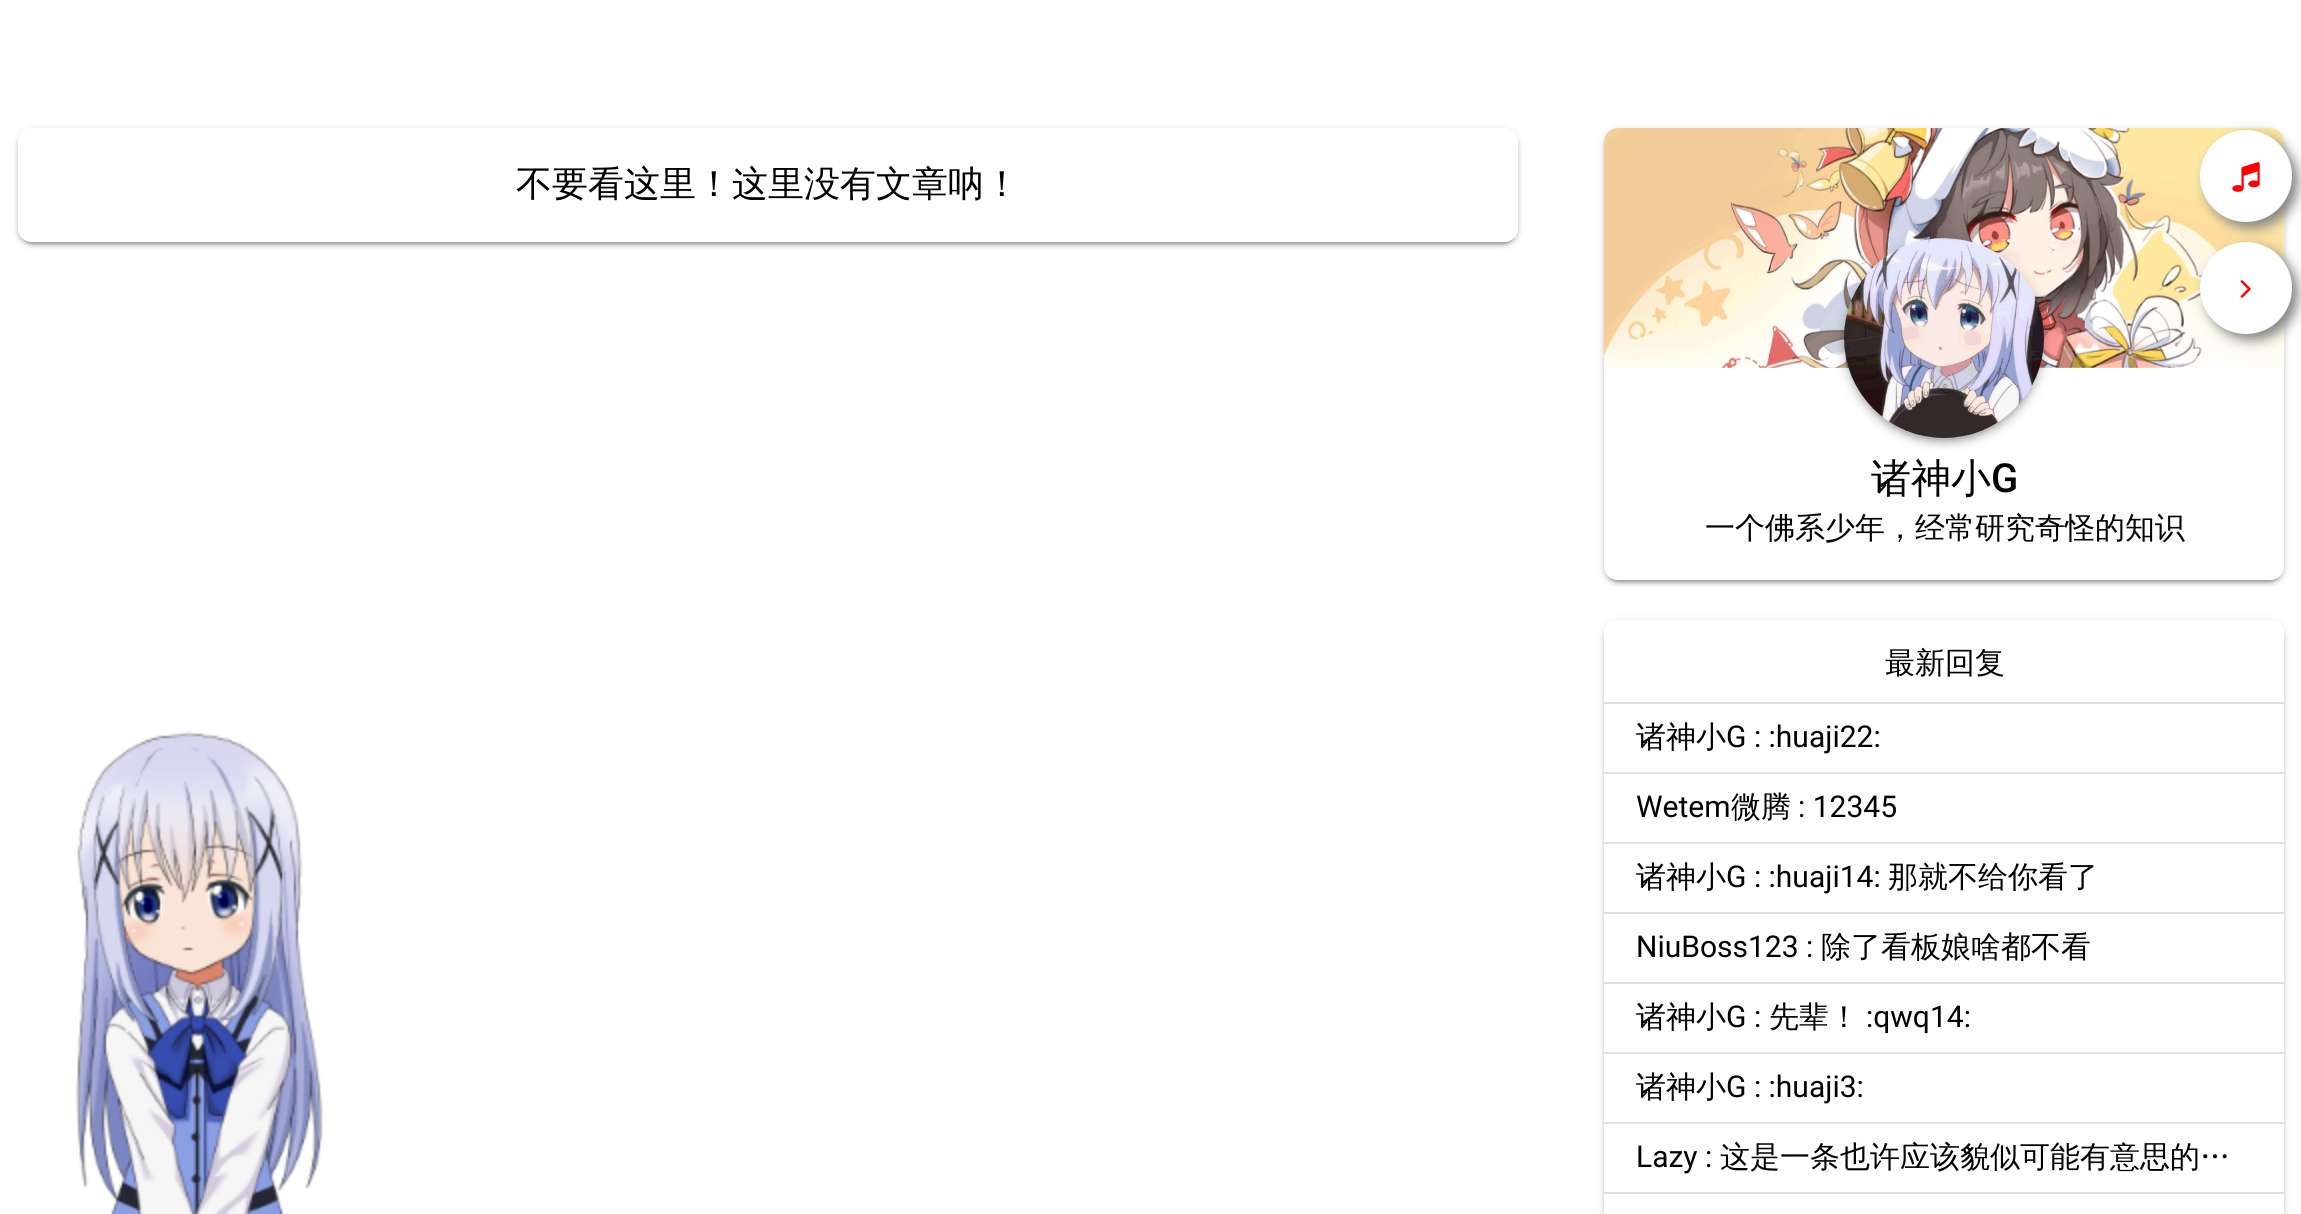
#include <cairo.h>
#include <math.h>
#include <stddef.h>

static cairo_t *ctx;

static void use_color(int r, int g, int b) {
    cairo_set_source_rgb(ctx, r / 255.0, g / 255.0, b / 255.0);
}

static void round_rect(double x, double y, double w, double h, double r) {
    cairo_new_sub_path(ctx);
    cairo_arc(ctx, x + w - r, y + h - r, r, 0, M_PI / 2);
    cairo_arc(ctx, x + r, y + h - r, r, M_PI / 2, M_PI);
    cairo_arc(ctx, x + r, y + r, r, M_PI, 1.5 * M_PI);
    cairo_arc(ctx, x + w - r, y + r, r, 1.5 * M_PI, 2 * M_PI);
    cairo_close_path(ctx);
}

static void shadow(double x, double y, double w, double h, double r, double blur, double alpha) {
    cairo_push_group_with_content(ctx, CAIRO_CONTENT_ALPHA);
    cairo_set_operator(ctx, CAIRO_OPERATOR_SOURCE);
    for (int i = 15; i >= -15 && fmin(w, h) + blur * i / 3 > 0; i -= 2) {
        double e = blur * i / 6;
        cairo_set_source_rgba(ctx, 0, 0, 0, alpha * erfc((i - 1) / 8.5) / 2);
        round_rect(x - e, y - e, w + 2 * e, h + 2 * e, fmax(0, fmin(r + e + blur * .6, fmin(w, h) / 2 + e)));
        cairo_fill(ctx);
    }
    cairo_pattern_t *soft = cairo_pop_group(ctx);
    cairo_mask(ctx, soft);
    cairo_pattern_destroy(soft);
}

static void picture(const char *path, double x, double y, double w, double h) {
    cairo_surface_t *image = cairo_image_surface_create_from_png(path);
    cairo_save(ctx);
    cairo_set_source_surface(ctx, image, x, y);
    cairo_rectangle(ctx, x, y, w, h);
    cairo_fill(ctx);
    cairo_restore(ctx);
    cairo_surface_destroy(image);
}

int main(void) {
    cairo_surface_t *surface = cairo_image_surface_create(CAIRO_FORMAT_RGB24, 2301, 1214);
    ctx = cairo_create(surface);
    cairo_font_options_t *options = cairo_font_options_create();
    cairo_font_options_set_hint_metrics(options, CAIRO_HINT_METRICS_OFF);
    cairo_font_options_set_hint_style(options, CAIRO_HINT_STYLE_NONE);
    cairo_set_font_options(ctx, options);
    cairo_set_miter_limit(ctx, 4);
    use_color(255, 255, 255);
    cairo_paint(ctx);
    picture("img1.png", 75, 731, 248, 483);
    cairo_save(ctx);
    cairo_set_fill_rule(ctx, CAIRO_FILL_RULE_EVEN_ODD);
    cairo_new_path(ctx);
    cairo_move_to(ctx, 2, 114);
    cairo_line_to(ctx, 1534, 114);
    cairo_line_to(ctx, 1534, 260);
    cairo_line_to(ctx, 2, 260);
    cairo_close_path(ctx);
    cairo_move_to(ctx, 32, 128);
    cairo_line_to(ctx, 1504, 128);
    cairo_curve_to(ctx, 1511.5, 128, 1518, 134.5, 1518, 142);
    cairo_line_to(ctx, 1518, 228);
    cairo_curve_to(ctx, 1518, 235.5, 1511.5, 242, 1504, 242);
    cairo_line_to(ctx, 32, 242);
    cairo_curve_to(ctx, 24.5, 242, 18, 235.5, 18, 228);
    cairo_line_to(ctx, 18, 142);
    cairo_curve_to(ctx, 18, 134.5, 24.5, 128, 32, 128);
    cairo_close_path(ctx);
    cairo_clip(ctx);
    use_color(0, 0, 0);
    shadow(18, 130, 1500, 114, 14, 5, 0.12);
    cairo_restore(ctx);
    cairo_save(ctx);
    cairo_set_fill_rule(ctx, CAIRO_FILL_RULE_EVEN_ODD);
    cairo_new_path(ctx);
    cairo_move_to(ctx, 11, 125);
    cairo_line_to(ctx, 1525, 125);
    cairo_line_to(ctx, 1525, 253);
    cairo_line_to(ctx, 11, 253);
    cairo_close_path(ctx);
    cairo_move_to(ctx, 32, 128);
    cairo_line_to(ctx, 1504, 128);
    cairo_curve_to(ctx, 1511.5, 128, 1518, 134.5, 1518, 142);
    cairo_line_to(ctx, 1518, 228);
    cairo_curve_to(ctx, 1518, 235.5, 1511.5, 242, 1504, 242);
    cairo_line_to(ctx, 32, 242);
    cairo_curve_to(ctx, 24.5, 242, 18, 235.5, 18, 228);
    cairo_line_to(ctx, 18, 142);
    cairo_curve_to(ctx, 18, 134.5, 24.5, 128, 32, 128);
    cairo_close_path(ctx);
    cairo_clip(ctx);
    use_color(0, 0, 0);
    shadow(18, 132, 1500, 114, 14, 2, 0.14);
    cairo_restore(ctx);
    cairo_save(ctx);
    cairo_set_fill_rule(ctx, CAIRO_FILL_RULE_EVEN_ODD);
    cairo_new_path(ctx);
    cairo_move_to(ctx, 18, 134);
    cairo_line_to(ctx, 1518, 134);
    cairo_line_to(ctx, 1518, 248);
    cairo_line_to(ctx, 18, 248);
    cairo_close_path(ctx);
    cairo_move_to(ctx, 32, 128);
    cairo_line_to(ctx, 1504, 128);
    cairo_curve_to(ctx, 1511.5, 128, 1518, 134.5, 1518, 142);
    cairo_line_to(ctx, 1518, 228);
    cairo_curve_to(ctx, 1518, 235.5, 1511.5, 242, 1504, 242);
    cairo_line_to(ctx, 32, 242);
    cairo_curve_to(ctx, 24.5, 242, 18, 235.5, 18, 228);
    cairo_line_to(ctx, 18, 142);
    cairo_curve_to(ctx, 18, 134.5, 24.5, 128, 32, 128);
    cairo_close_path(ctx);
    cairo_clip(ctx);
    use_color(0, 0, 0);
    shadow(22, 138, 1492, 106, 10, 1, 0.2);
    cairo_restore(ctx);
    cairo_set_source_rgba(ctx, 1, 1, 1, 0.8);
    round_rect(18, 128, 1500, 114, 14);
    cairo_fill(ctx);
    cairo_select_font_face(ctx, "WenQuanYi Zen Hei Medium", CAIRO_FONT_SLANT_NORMAL, CAIRO_FONT_WEIGHT_NORMAL);
    cairo_set_font_size(ctx, 36);
    use_color(0, 0, 0);
    cairo_move_to(ctx, 516, 196);
    cairo_show_text(ctx, "不要看这里！这里没有文章呐！");
    cairo_save(ctx);
    cairo_set_fill_rule(ctx, CAIRO_FILL_RULE_EVEN_ODD);
    cairo_new_path(ctx);
    cairo_move_to(ctx, 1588, 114);
    cairo_line_to(ctx, 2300, 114);
    cairo_line_to(ctx, 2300, 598);
    cairo_line_to(ctx, 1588, 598);
    cairo_close_path(ctx);
    cairo_move_to(ctx, 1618, 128);
    cairo_line_to(ctx, 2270, 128);
    cairo_curve_to(ctx, 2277.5, 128, 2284, 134.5, 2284, 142);
    cairo_line_to(ctx, 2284, 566);
    cairo_curve_to(ctx, 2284, 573.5, 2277.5, 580, 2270, 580);
    cairo_line_to(ctx, 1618, 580);
    cairo_curve_to(ctx, 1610.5, 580, 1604, 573.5, 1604, 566);
    cairo_line_to(ctx, 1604, 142);
    cairo_curve_to(ctx, 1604, 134.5, 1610.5, 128, 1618, 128);
    cairo_close_path(ctx);
    cairo_clip(ctx);
    use_color(0, 0, 0);
    shadow(1604, 130, 680, 452, 14, 5, 0.12);
    cairo_restore(ctx);
    cairo_save(ctx);
    cairo_set_fill_rule(ctx, CAIRO_FILL_RULE_EVEN_ODD);
    cairo_new_path(ctx);
    cairo_move_to(ctx, 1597, 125);
    cairo_line_to(ctx, 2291, 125);
    cairo_line_to(ctx, 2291, 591);
    cairo_line_to(ctx, 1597, 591);
    cairo_close_path(ctx);
    cairo_move_to(ctx, 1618, 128);
    cairo_line_to(ctx, 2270, 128);
    cairo_curve_to(ctx, 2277.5, 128, 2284, 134.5, 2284, 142);
    cairo_line_to(ctx, 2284, 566);
    cairo_curve_to(ctx, 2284, 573.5, 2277.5, 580, 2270, 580);
    cairo_line_to(ctx, 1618, 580);
    cairo_curve_to(ctx, 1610.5, 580, 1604, 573.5, 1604, 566);
    cairo_line_to(ctx, 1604, 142);
    cairo_curve_to(ctx, 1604, 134.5, 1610.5, 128, 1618, 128);
    cairo_close_path(ctx);
    cairo_clip(ctx);
    use_color(0, 0, 0);
    shadow(1604, 132, 680, 452, 14, 2, 0.14);
    cairo_restore(ctx);
    cairo_save(ctx);
    cairo_set_fill_rule(ctx, CAIRO_FILL_RULE_EVEN_ODD);
    cairo_new_path(ctx);
    cairo_move_to(ctx, 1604, 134);
    cairo_line_to(ctx, 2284, 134);
    cairo_line_to(ctx, 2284, 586);
    cairo_line_to(ctx, 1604, 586);
    cairo_close_path(ctx);
    cairo_move_to(ctx, 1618, 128);
    cairo_line_to(ctx, 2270, 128);
    cairo_curve_to(ctx, 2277.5, 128, 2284, 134.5, 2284, 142);
    cairo_line_to(ctx, 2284, 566);
    cairo_curve_to(ctx, 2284, 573.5, 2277.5, 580, 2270, 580);
    cairo_line_to(ctx, 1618, 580);
    cairo_curve_to(ctx, 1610.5, 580, 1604, 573.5, 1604, 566);
    cairo_line_to(ctx, 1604, 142);
    cairo_curve_to(ctx, 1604, 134.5, 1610.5, 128, 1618, 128);
    cairo_close_path(ctx);
    cairo_clip(ctx);
    use_color(0, 0, 0);
    shadow(1608, 138, 672, 444, 10, 1, 0.2);
    cairo_restore(ctx);
    cairo_set_source_rgba(ctx, 1, 1, 1, 0.8);
    round_rect(1604, 128, 680, 452, 14);
    cairo_fill(ctx);
    picture("img2.png", 1604, 128, 680, 240);
    use_color(0, 0, 0);
    shadow(1844, 240, 200, 200, 100, 8, 0.12);
    shadow(1844, 244, 200, 200, 100, 4, 0.14);
    shadow(1848, 248, 192, 192, 96, 3, 0.2);
    picture("img3.png", 1844, 238, 200, 200);
    cairo_set_font_size(ctx, 40);
    use_color(0, 0, 0);
    cairo_move_to(ctx, 1871, 492);
    cairo_show_text(ctx, "诸神小");
    cairo_select_font_face(ctx, "Roboto Medium", CAIRO_FONT_SLANT_NORMAL, CAIRO_FONT_WEIGHT_NORMAL);
    cairo_move_to(ctx, 1991, 492);
    cairo_show_text(ctx, "G");
    cairo_select_font_face(ctx, "WenQuanYi Zen Hei Medium", CAIRO_FONT_SLANT_NORMAL, CAIRO_FONT_WEIGHT_NORMAL);
    cairo_set_font_size(ctx, 30);
    cairo_move_to(ctx, 1705, 538);
    cairo_show_text(ctx, "一个佛系少年，经常研究奇怪的知识");
    cairo_save(ctx);
    cairo_set_fill_rule(ctx, CAIRO_FILL_RULE_EVEN_ODD);
    cairo_new_path(ctx);
    cairo_move_to(ctx, 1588, 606);
    cairo_line_to(ctx, 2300, 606);
    cairo_line_to(ctx, 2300, 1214);
    cairo_line_to(ctx, 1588, 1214);
    cairo_close_path(ctx);
    cairo_move_to(ctx, 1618, 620);
    cairo_line_to(ctx, 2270, 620);
    cairo_curve_to(ctx, 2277.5, 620, 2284, 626.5, 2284, 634);
    cairo_line_to(ctx, 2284, 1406);
    cairo_curve_to(ctx, 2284, 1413.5, 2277.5, 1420, 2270, 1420);
    cairo_line_to(ctx, 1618, 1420);
    cairo_curve_to(ctx, 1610.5, 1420, 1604, 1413.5, 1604, 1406);
    cairo_line_to(ctx, 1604, 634);
    cairo_curve_to(ctx, 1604, 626.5, 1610.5, 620, 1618, 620);
    cairo_close_path(ctx);
    cairo_clip(ctx);
    use_color(0, 0, 0);
    shadow(1604, 622, 680, 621, 14, 5, 0.12);
    cairo_restore(ctx);
    cairo_save(ctx);
    cairo_set_fill_rule(ctx, CAIRO_FILL_RULE_EVEN_ODD);
    cairo_new_path(ctx);
    cairo_move_to(ctx, 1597, 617);
    cairo_line_to(ctx, 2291, 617);
    cairo_line_to(ctx, 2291, 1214);
    cairo_line_to(ctx, 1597, 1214);
    cairo_close_path(ctx);
    cairo_move_to(ctx, 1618, 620);
    cairo_line_to(ctx, 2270, 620);
    cairo_curve_to(ctx, 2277.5, 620, 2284, 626.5, 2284, 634);
    cairo_line_to(ctx, 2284, 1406);
    cairo_curve_to(ctx, 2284, 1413.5, 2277.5, 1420, 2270, 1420);
    cairo_line_to(ctx, 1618, 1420);
    cairo_curve_to(ctx, 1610.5, 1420, 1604, 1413.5, 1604, 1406);
    cairo_line_to(ctx, 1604, 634);
    cairo_curve_to(ctx, 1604, 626.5, 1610.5, 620, 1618, 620);
    cairo_close_path(ctx);
    cairo_clip(ctx);
    use_color(0, 0, 0);
    shadow(1604, 624, 680, 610, 14, 2, 0.14);
    cairo_restore(ctx);
    cairo_set_source_rgba(ctx, 1, 1, 1, 0.8);
    round_rect(1604, 620, 680, 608, 14);
    cairo_fill(ctx);
    use_color(0, 0, 0);
    cairo_move_to(ctx, 1885, 673);
    cairo_show_text(ctx, "最新回复");
    use_color(224, 224, 224);
    cairo_rectangle(ctx, 1604, 702, 680, 2);
    cairo_fill(ctx);
    use_color(0, 0, 0);
    cairo_move_to(ctx, 1636, 747);
    cairo_show_text(ctx, "诸神小");
    cairo_select_font_face(ctx, "Roboto", CAIRO_FONT_SLANT_NORMAL, CAIRO_FONT_WEIGHT_NORMAL);
    cairo_move_to(ctx, 1726, 747);
    cairo_show_text(ctx, "G : :huaji22:");
    use_color(224, 224, 224);
    cairo_rectangle(ctx, 1604, 772, 680, 2);
    cairo_fill(ctx);
    use_color(0, 0, 0);
    cairo_move_to(ctx, 1636, 817);
    cairo_show_text(ctx, "Wetem");
    cairo_select_font_face(ctx, "WenQuanYi Zen Hei Medium", CAIRO_FONT_SLANT_NORMAL, CAIRO_FONT_WEIGHT_NORMAL);
    cairo_move_to(ctx, 1731, 817);
    cairo_show_text(ctx, "微腾");
    cairo_select_font_face(ctx, "Roboto", CAIRO_FONT_SLANT_NORMAL, CAIRO_FONT_WEIGHT_NORMAL);
    cairo_move_to(ctx, 1798, 817);
    cairo_show_text(ctx, ": 12345");
    use_color(224, 224, 224);
    cairo_rectangle(ctx, 1604, 842, 680, 2);
    cairo_fill(ctx);
    cairo_select_font_face(ctx, "WenQuanYi Zen Hei Medium", CAIRO_FONT_SLANT_NORMAL, CAIRO_FONT_WEIGHT_NORMAL);
    use_color(0, 0, 0);
    cairo_move_to(ctx, 1636, 887);
    cairo_show_text(ctx, "诸神小");
    cairo_select_font_face(ctx, "Roboto", CAIRO_FONT_SLANT_NORMAL, CAIRO_FONT_WEIGHT_NORMAL);
    cairo_move_to(ctx, 1726, 887);
    cairo_show_text(ctx, "G : :huaji14:");
    cairo_select_font_face(ctx, "WenQuanYi Zen Hei Medium", CAIRO_FONT_SLANT_NORMAL, CAIRO_FONT_WEIGHT_NORMAL);
    cairo_move_to(ctx, 1888, 887);
    cairo_show_text(ctx, "那就不给你看了");
    use_color(224, 224, 224);
    cairo_rectangle(ctx, 1604, 912, 680, 2);
    cairo_fill(ctx);
    cairo_select_font_face(ctx, "Roboto", CAIRO_FONT_SLANT_NORMAL, CAIRO_FONT_WEIGHT_NORMAL);
    use_color(0, 0, 0);
    cairo_move_to(ctx, 1636, 957);
    cairo_show_text(ctx, "NiuBoss123 :");
    cairo_select_font_face(ctx, "WenQuanYi Zen Hei Medium", CAIRO_FONT_SLANT_NORMAL, CAIRO_FONT_WEIGHT_NORMAL);
    cairo_move_to(ctx, 1821, 957);
    cairo_show_text(ctx, "除了看板娘啥都不看");
    use_color(224, 224, 224);
    cairo_rectangle(ctx, 1604, 982, 680, 2);
    cairo_fill(ctx);
    use_color(0, 0, 0);
    cairo_move_to(ctx, 1636, 1027);
    cairo_show_text(ctx, "诸神小");
    cairo_select_font_face(ctx, "Roboto", CAIRO_FONT_SLANT_NORMAL, CAIRO_FONT_WEIGHT_NORMAL);
    cairo_move_to(ctx, 1726, 1027);
    cairo_show_text(ctx, "G :");
    cairo_select_font_face(ctx, "WenQuanYi Zen Hei Medium", CAIRO_FONT_SLANT_NORMAL, CAIRO_FONT_WEIGHT_NORMAL);
    cairo_move_to(ctx, 1769, 1027);
    cairo_show_text(ctx, "先辈！");
    cairo_select_font_face(ctx, "Roboto", CAIRO_FONT_SLANT_NORMAL, CAIRO_FONT_WEIGHT_NORMAL);
    cairo_move_to(ctx, 1866, 1027);
    cairo_show_text(ctx, ":qwq14:");
    use_color(224, 224, 224);
    cairo_rectangle(ctx, 1604, 1052, 680, 2);
    cairo_fill(ctx);
    cairo_select_font_face(ctx, "WenQuanYi Zen Hei Medium", CAIRO_FONT_SLANT_NORMAL, CAIRO_FONT_WEIGHT_NORMAL);
    use_color(0, 0, 0);
    cairo_move_to(ctx, 1636, 1097);
    cairo_show_text(ctx, "诸神小");
    cairo_select_font_face(ctx, "Roboto", CAIRO_FONT_SLANT_NORMAL, CAIRO_FONT_WEIGHT_NORMAL);
    cairo_move_to(ctx, 1726, 1097);
    cairo_show_text(ctx, "G : :huaji3:");
    use_color(224, 224, 224);
    cairo_rectangle(ctx, 1604, 1122, 680, 2);
    cairo_fill(ctx);
    use_color(0, 0, 0);
    cairo_move_to(ctx, 1636, 1167);
    cairo_show_text(ctx, "Lazy :");
    cairo_select_font_face(ctx, "WenQuanYi Zen Hei Medium", CAIRO_FONT_SLANT_NORMAL, CAIRO_FONT_WEIGHT_NORMAL);
    cairo_move_to(ctx, 1720, 1167);
    cairo_show_text(ctx, "这是一条也许应该貌似可能有意思的…");
    use_color(224, 224, 224);
    cairo_rectangle(ctx, 1604, 1192, 680, 2);
    cairo_fill(ctx);
    use_color(133, 133, 133);
    shadow(2206, 136, 92, 92, 46, 6, 1);
    use_color(255, 255, 255);
    cairo_arc(ctx, 2246, 176, 46, 0, 2 * M_PI);
    cairo_fill(ctx);
    picture("img4.png", 2232, 162, 28, 30);
    use_color(133, 133, 133);
    shadow(2206, 248, 92, 92, 46, 6, 1);
    use_color(255, 255, 255);
    cairo_arc(ctx, 2246, 288, 46, 0, 2 * M_PI);
    cairo_fill(ctx);
    picture("img5.png", 2240, 280, 11, 18);
    cairo_surface_write_to_png(surface, "result.png");
    cairo_font_options_destroy(options);
    cairo_destroy(ctx);
    cairo_surface_destroy(surface);
    return 0;
}
